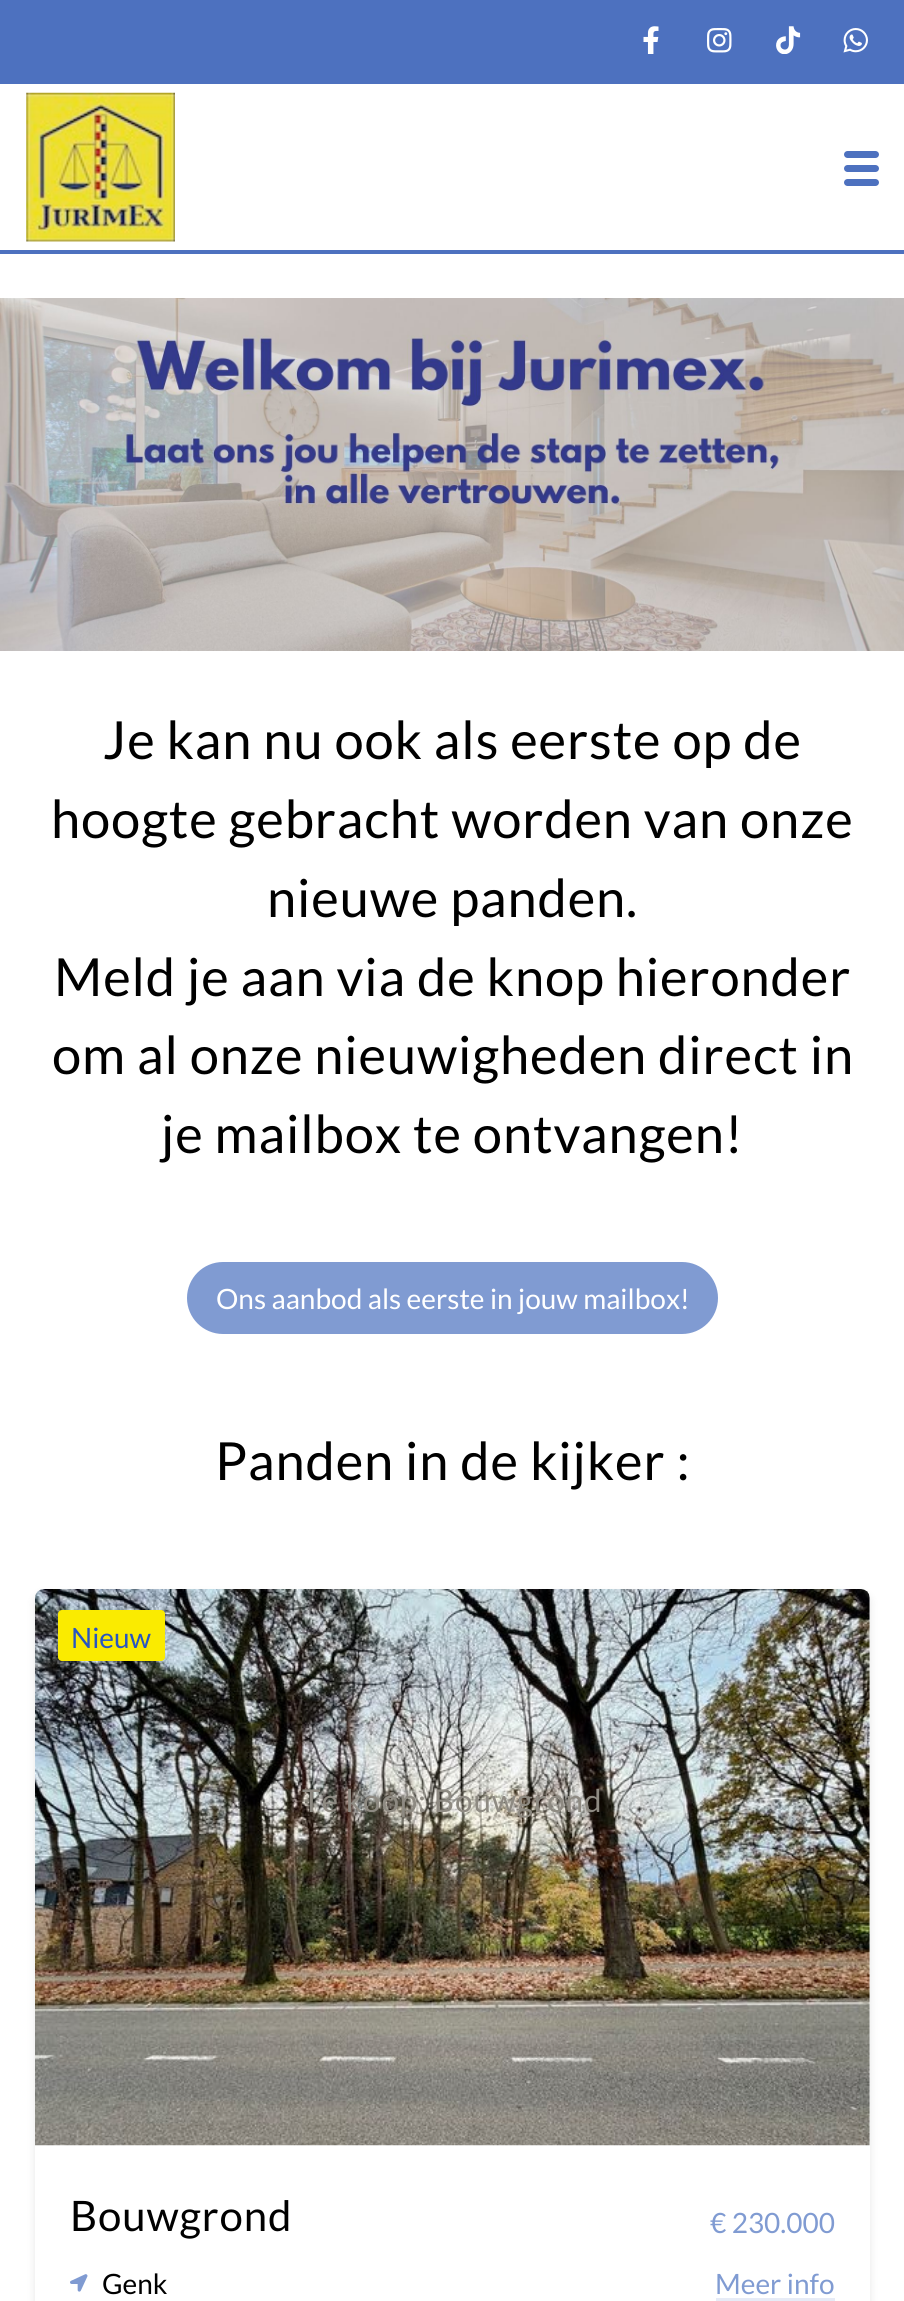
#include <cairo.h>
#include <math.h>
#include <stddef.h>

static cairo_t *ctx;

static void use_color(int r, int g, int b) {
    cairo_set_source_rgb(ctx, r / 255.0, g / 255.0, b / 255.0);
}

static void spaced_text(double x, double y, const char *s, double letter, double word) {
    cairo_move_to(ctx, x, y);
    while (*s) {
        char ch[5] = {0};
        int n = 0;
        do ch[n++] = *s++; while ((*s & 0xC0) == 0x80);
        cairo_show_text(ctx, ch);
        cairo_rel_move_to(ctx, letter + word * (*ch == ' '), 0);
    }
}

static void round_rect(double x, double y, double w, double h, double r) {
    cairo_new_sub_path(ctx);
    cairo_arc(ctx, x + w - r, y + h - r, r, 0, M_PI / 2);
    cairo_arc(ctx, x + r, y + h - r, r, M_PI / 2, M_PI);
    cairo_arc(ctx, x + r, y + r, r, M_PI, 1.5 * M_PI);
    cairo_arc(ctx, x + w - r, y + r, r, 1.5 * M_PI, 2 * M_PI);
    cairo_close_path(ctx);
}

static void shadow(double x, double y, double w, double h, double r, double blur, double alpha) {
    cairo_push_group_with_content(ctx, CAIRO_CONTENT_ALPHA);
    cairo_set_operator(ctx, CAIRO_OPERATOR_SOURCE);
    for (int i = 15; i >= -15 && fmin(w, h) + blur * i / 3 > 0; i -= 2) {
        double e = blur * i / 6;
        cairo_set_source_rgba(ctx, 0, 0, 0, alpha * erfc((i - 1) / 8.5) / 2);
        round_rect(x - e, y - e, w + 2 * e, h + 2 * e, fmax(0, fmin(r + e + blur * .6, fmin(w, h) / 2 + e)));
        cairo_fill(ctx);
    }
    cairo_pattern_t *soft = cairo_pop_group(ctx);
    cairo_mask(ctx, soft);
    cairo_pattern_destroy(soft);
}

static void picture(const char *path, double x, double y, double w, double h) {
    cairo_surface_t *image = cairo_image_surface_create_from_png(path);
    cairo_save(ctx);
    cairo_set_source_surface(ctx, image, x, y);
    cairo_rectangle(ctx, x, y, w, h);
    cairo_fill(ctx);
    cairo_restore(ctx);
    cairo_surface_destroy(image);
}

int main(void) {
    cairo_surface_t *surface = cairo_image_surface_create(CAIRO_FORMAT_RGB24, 904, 2301);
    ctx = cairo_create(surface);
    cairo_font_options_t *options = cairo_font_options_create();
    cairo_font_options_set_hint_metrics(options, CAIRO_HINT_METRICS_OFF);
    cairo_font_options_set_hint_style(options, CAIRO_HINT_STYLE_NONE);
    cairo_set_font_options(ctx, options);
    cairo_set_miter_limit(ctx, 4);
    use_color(255, 255, 255);
    cairo_paint(ctx);
    use_color(77, 113, 191);
    cairo_rectangle(ctx, 0, 0, 904, 84);
    cairo_fill(ctx);
    picture("img1.png", 643, 26, 16, 28);
    picture("img2.png", 707, 28, 25, 25);
    picture("img3.png", 776, 26, 25, 28);
    picture("img4.png", 843, 28, 25, 25);
    cairo_rectangle(ctx, 0, 250, 904, 4);
    cairo_fill(ctx);
    picture("img5.png", 26, 92, 149, 150);
    round_rect(844, 151, 35, 7, 3.5);
    cairo_fill(ctx);
    round_rect(844, 165, 35, 7, 3.5);
    cairo_fill(ctx);
    round_rect(844, 179, 35, 7, 3.5);
    cairo_fill(ctx);
    picture("img6.png", 0, 298, 904, 353);
    cairo_select_font_face(ctx, "Lato", CAIRO_FONT_SLANT_NORMAL, CAIRO_FONT_WEIGHT_NORMAL);
    cairo_set_font_size(ctx, 52.5);
    use_color(0, 0, 0);
    spaced_text(103, 759, "Je kan nu ook als eerste op de", 0.85, 0);
    spaced_text(51, 838, "hoogte gebracht worden van onze", 0.85, 0);
    spaced_text(267, 917, "nieuwe panden.", 0.85, 0);
    spaced_text(54, 996, "Meld je aan via de knop hieronder", 0.85, 0);
    spaced_text(52, 1074, "om al onze nieuwigheden direct in", 0.85, 0);
    spaced_text(161, 1153, "je mailbox te ontvangen!", 0.85, 0);
    use_color(128, 155, 210);
    round_rect(188, 1263, 529, 70, 35);
    cairo_fill_preserve(ctx);
    cairo_stroke(ctx);
    cairo_set_font_size(ctx, 28);
    use_color(255, 255, 255);
    cairo_move_to(ctx, 216, 1309);
    cairo_show_text(ctx, "Ons aanbod als eerste in jouw mailbox!");
    cairo_set_font_size(ctx, 52.5);
    use_color(0, 0, 0);
    spaced_text(215, 1480, "Panden in de kijker :", 0.85, 0);
    cairo_save(ctx);
    cairo_set_fill_rule(ctx, CAIRO_FILL_RULE_EVEN_ODD);
    cairo_new_path(ctx);
    cairo_move_to(ctx, 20, 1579);
    cairo_line_to(ctx, 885, 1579);
    cairo_line_to(ctx, 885, 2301);
    cairo_line_to(ctx, 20, 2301);
    cairo_close_path(ctx);
    cairo_move_to(ctx, 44, 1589);
    cairo_line_to(ctx, 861, 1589);
    cairo_curve_to(ctx, 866, 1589, 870, 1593, 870, 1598);
    cairo_line_to(ctx, 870, 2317);
    cairo_curve_to(ctx, 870, 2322, 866, 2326, 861, 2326);
    cairo_line_to(ctx, 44, 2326);
    cairo_curve_to(ctx, 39, 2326, 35, 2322, 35, 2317);
    cairo_line_to(ctx, 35, 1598);
    cairo_curve_to(ctx, 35, 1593, 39, 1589, 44, 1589);
    cairo_close_path(ctx);
    cairo_clip(ctx);
    use_color(0, 0, 0);
    shadow(35, 1594, 835, 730, 9, 4.5, 0.1);
    cairo_restore(ctx);
    picture("img7.png", 35, 1589, 835, 557);
    use_color(250, 235, 0);
    round_rect(58, 1610, 107, 51, 4);
    cairo_fill(ctx);
    cairo_set_font_size(ctx, 28);
    use_color(39, 85, 194);
    cairo_move_to(ctx, 71, 1648);
    cairo_show_text(ctx, "Nieuw");
    cairo_set_font_size(ctx, 31.5);
    use_color(142, 138, 130);
    spaced_text(302, 1812, "Te koop: Bouwgrond", 0.85, 0);
    cairo_set_font_size(ctx, 42);
    use_color(0, 0, 0);
    spaced_text(70, 2231, "Bouwgrond", 0.85, 0);
    cairo_set_font_size(ctx, 28);
    use_color(128, 155, 210);
    cairo_move_to(ctx, 710, 2233);
    cairo_show_text(ctx, "€ 230.000");
    picture("img8.png", 70, 2274, 18, 18);
    use_color(0, 0, 0);
    cairo_move_to(ctx, 102, 2294);
    cairo_show_text(ctx, "Genk");
    use_color(128, 155, 210);
    cairo_move_to(ctx, 715, 2294);
    cairo_show_text(ctx, "Meer info");
    use_color(230, 235, 246);
    cairo_rectangle(ctx, 716, 2298, 119, 3);
    cairo_fill(ctx);
    cairo_surface_write_to_png(surface, "result.png");
    cairo_font_options_destroy(options);
    cairo_destroy(ctx);
    cairo_surface_destroy(surface);
    return 0;
}
